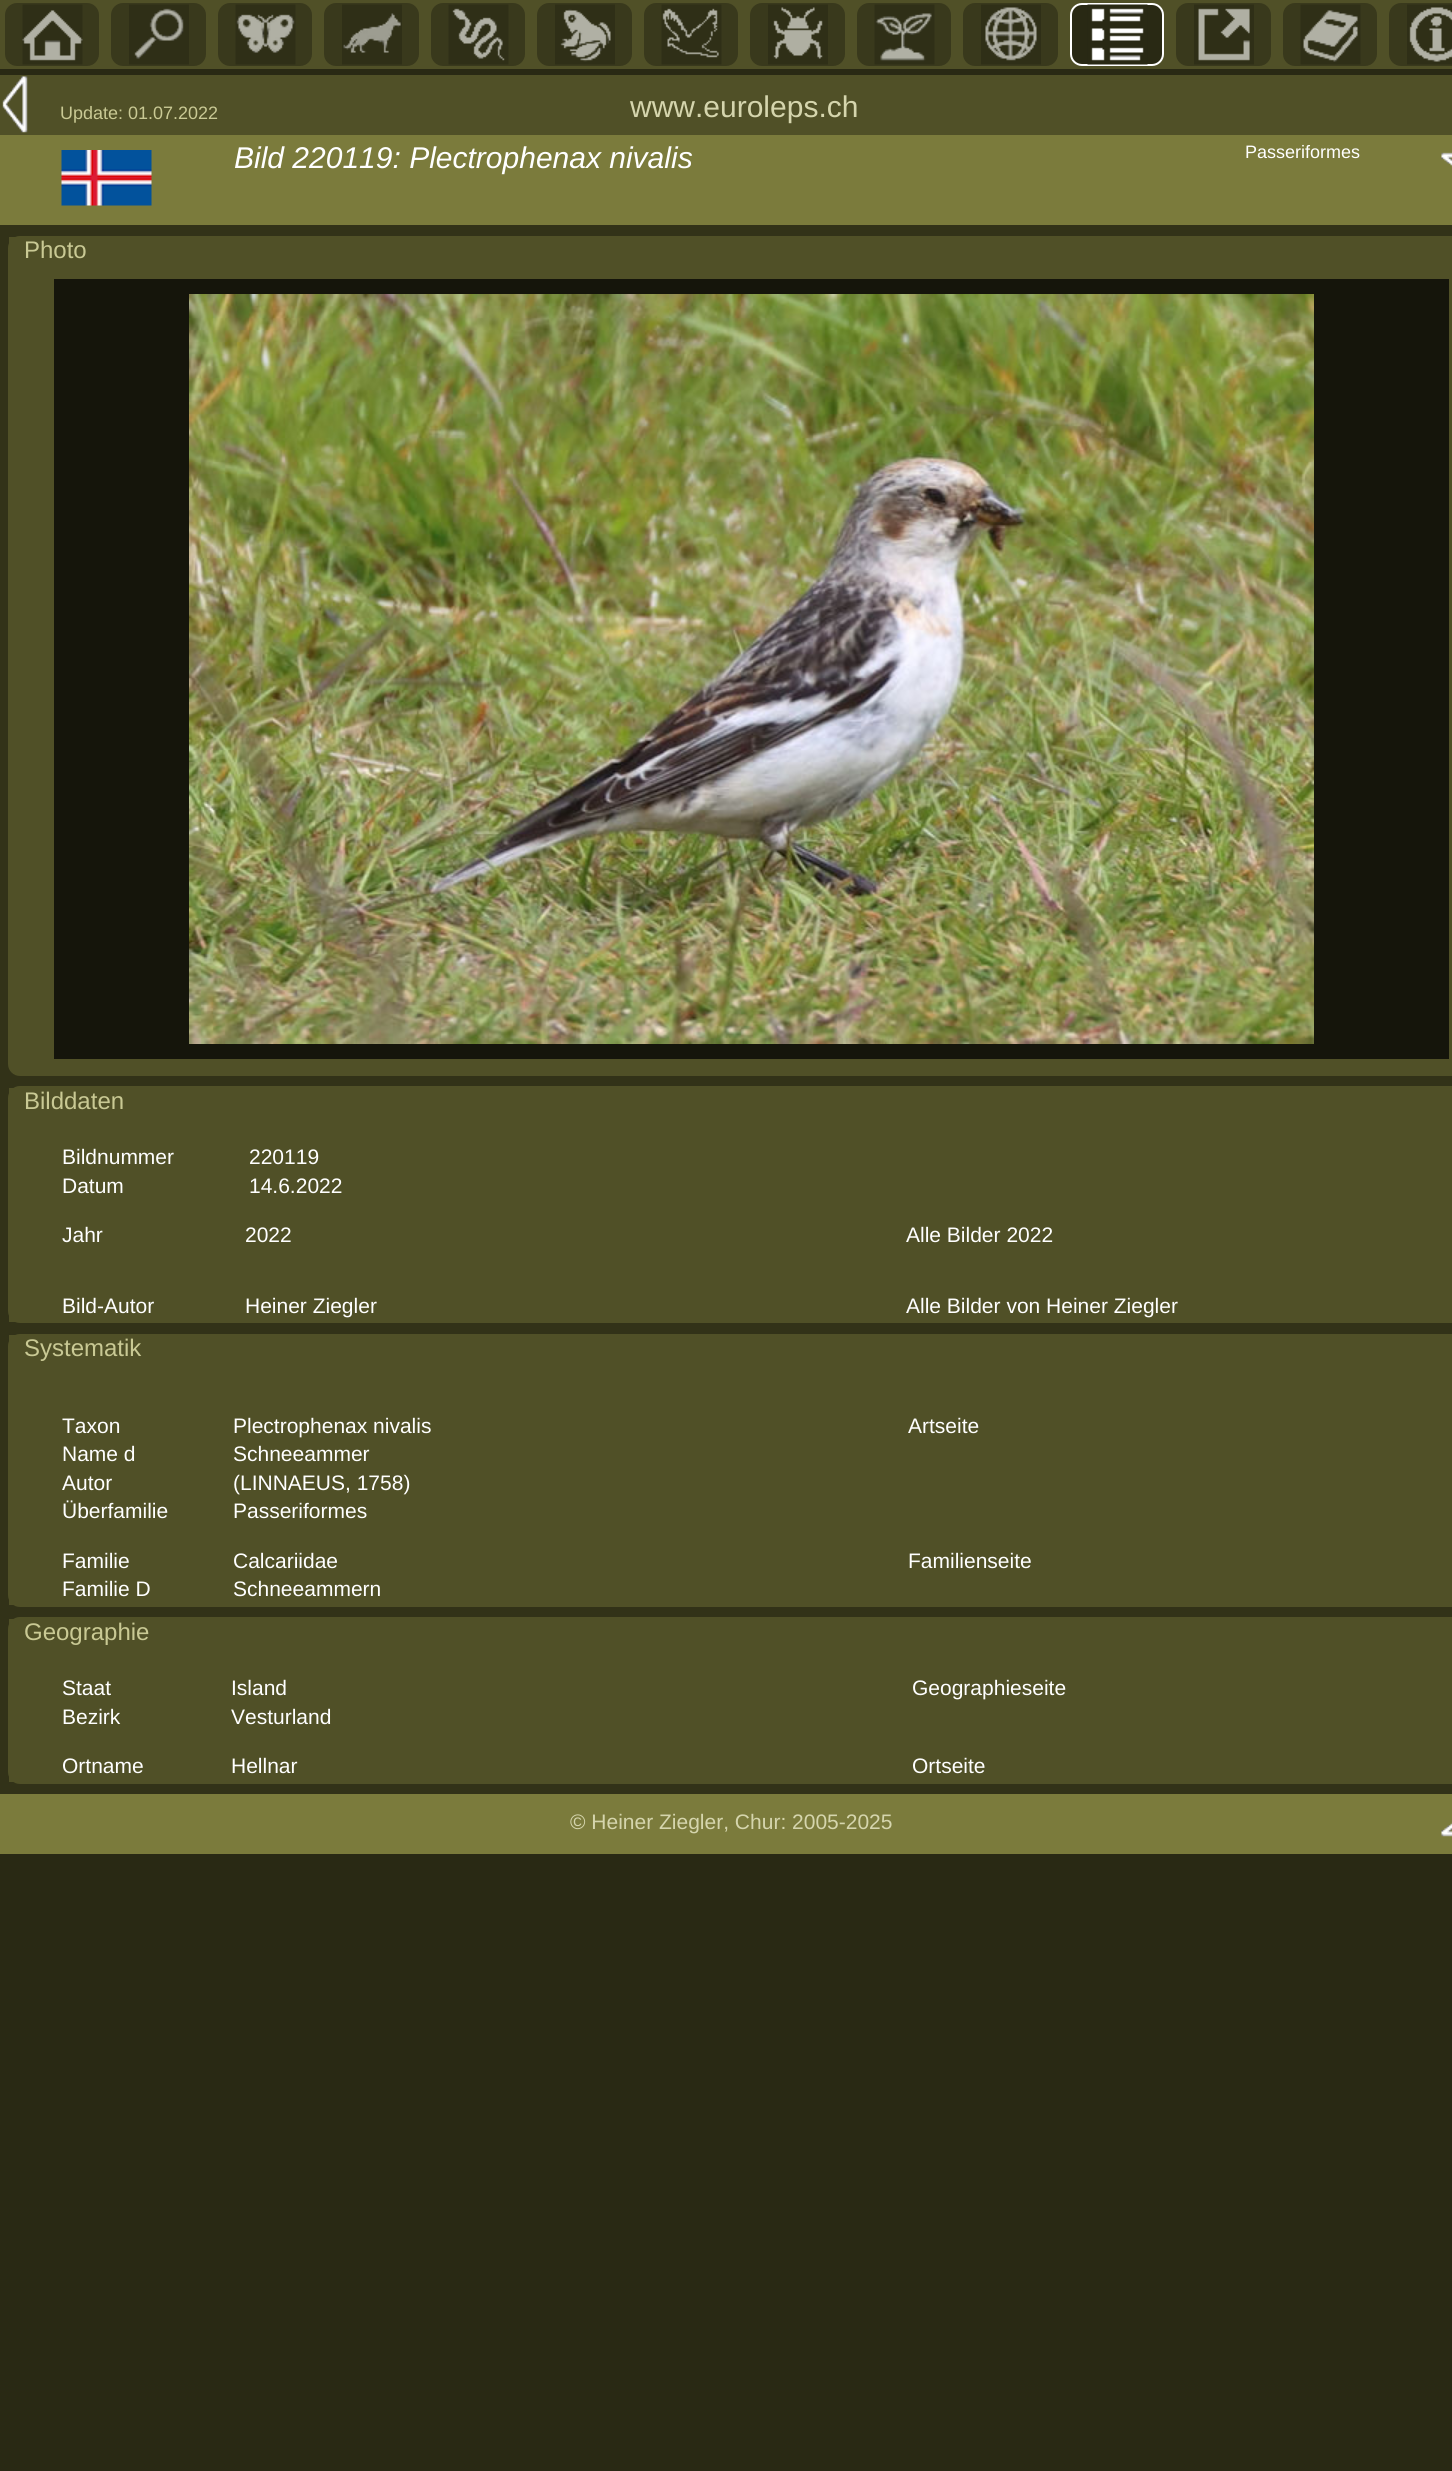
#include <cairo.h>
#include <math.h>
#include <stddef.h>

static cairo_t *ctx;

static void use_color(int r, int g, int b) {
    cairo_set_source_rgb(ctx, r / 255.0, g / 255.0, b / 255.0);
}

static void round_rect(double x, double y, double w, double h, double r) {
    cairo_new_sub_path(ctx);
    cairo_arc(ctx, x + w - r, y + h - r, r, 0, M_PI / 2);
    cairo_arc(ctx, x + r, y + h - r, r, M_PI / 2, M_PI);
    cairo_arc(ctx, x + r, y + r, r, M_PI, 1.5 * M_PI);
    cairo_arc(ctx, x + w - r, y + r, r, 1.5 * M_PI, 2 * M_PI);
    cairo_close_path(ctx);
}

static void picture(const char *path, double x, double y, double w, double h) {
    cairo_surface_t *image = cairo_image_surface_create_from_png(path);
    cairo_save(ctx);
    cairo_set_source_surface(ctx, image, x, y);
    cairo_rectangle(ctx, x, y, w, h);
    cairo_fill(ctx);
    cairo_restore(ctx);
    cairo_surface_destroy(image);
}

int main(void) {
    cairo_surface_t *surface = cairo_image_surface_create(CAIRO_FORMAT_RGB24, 1452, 2471);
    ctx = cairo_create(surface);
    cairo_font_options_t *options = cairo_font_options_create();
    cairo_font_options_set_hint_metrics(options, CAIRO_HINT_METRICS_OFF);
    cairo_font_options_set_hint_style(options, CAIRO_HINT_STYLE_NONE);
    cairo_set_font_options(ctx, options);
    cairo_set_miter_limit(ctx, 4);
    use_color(41, 41, 20);
    cairo_paint(ctx);
    use_color(80, 80, 39);
    cairo_rectangle(ctx, 0, 0, 1452, 69);
    cairo_fill(ctx);
    use_color(57, 57, 28);
    round_rect(6, 4, 92, 61, 11);
    cairo_fill_preserve(ctx);
    cairo_stroke(ctx);
    picture("img1.png", 22, 4, 61, 61);
    round_rect(112, 4, 93, 61, 11);
    cairo_fill_preserve(ctx);
    cairo_stroke(ctx);
    picture("img2.png", 129, 4, 60, 61);
    round_rect(219, 4, 92, 61, 11);
    cairo_fill_preserve(ctx);
    cairo_stroke(ctx);
    picture("img3.png", 235, 4, 61, 61);
    round_rect(325, 4, 93, 61, 11);
    cairo_fill_preserve(ctx);
    cairo_stroke(ctx);
    picture("img4.png", 342, 4, 60, 61);
    round_rect(432, 4, 92, 61, 11);
    cairo_fill_preserve(ctx);
    cairo_stroke(ctx);
    picture("img5.png", 448, 4, 61, 61);
    round_rect(538, 4, 93, 61, 11);
    cairo_fill_preserve(ctx);
    cairo_stroke(ctx);
    picture("img6.png", 555, 4, 60, 61);
    round_rect(645, 4, 92, 61, 11);
    cairo_fill_preserve(ctx);
    cairo_stroke(ctx);
    picture("img7.png", 661, 4, 61, 61);
    round_rect(751, 4, 93, 61, 11);
    cairo_fill_preserve(ctx);
    cairo_stroke(ctx);
    picture("img8.png", 768, 4, 60, 61);
    round_rect(858, 4, 92, 61, 11);
    cairo_fill_preserve(ctx);
    cairo_stroke(ctx);
    picture("img9.png", 874, 4, 61, 61);
    round_rect(964, 4, 93, 61, 11);
    cairo_fill_preserve(ctx);
    cairo_stroke(ctx);
    picture("img10.png", 981, 4, 60, 61);
    use_color(41, 41, 20);
    round_rect(1071, 4, 92, 61, 11);
    cairo_fill_preserve(ctx);
    use_color(255, 255, 255);
    cairo_stroke(ctx);
    picture("img11.png", 1087, 4, 61, 61);
    use_color(57, 57, 28);
    round_rect(1177, 4, 93, 61, 11);
    cairo_fill_preserve(ctx);
    cairo_stroke(ctx);
    picture("img12.png", 1194, 4, 60, 61);
    round_rect(1284, 4, 92, 61, 11);
    cairo_fill_preserve(ctx);
    cairo_stroke(ctx);
    picture("img13.png", 1300, 4, 61, 61);
    round_rect(1390, 4, 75, 61, 11);
    cairo_fill_preserve(ctx);
    cairo_stroke(ctx);
    picture("img14.png", 1407, 4, 45, 61);
    use_color(80, 80, 39);
    cairo_rectangle(ctx, 0, 75, 1452, 60);
    cairo_fill(ctx);
    picture("img15.png", 2, 76, 26, 57);
    cairo_select_font_face(ctx, "Liberation Sans", CAIRO_FONT_SLANT_NORMAL, CAIRO_FONT_WEIGHT_NORMAL);
    cairo_set_font_size(ctx, 18);
    use_color(201, 201, 148);
    cairo_move_to(ctx, 60, 119);
    cairo_show_text(ctx, "Update: 01.07.2022");
    cairo_set_font_size(ctx, 30);
    use_color(213, 213, 173);
    cairo_move_to(ctx, 630, 117);
    cairo_show_text(ctx, "www.euroleps.ch");
    use_color(123, 123, 60);
    cairo_rectangle(ctx, 0, 135, 1452, 90);
    cairo_fill(ctx);
    picture("img16.png", 61, 150, 91, 56);
    cairo_select_font_face(ctx, "Liberation Sans", CAIRO_FONT_SLANT_ITALIC, CAIRO_FONT_WEIGHT_NORMAL);
    use_color(255, 255, 255);
    cairo_move_to(ctx, 234, 168);
    cairo_show_text(ctx, "Bild 220119: Plectrophenax nivalis");
    cairo_select_font_face(ctx, "Liberation Sans", CAIRO_FONT_SLANT_NORMAL, CAIRO_FONT_WEIGHT_NORMAL);
    cairo_set_font_size(ctx, 18);
    cairo_move_to(ctx, 1245, 158);
    cairo_show_text(ctx, "Passeriformes");
    picture("img17.png", 1441, 152, 11, 15);
    use_color(50, 50, 24);
    cairo_rectangle(ctx, 0, 225, 1452, 1569);
    cairo_fill(ctx);
    use_color(80, 80, 39);
    round_rect(9, 237, 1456, 838, 11);
    cairo_fill_preserve(ctx);
    cairo_stroke(ctx);
    cairo_rectangle(ctx, 9, 237, 6, 6);
    cairo_fill(ctx);
    cairo_set_font_size(ctx, 24);
    use_color(201, 201, 148);
    cairo_move_to(ctx, 24, 258);
    cairo_show_text(ctx, "Photo");
    use_color(21, 21, 11);
    cairo_rectangle(ctx, 54, 279, 1395, 780);
    cairo_fill(ctx);
    picture("img18.png", 189, 294, 1125, 750);
    round_rect(9, 1087, 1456, 235, 11);
    use_color(80, 80, 39);
    cairo_stroke(ctx);
    cairo_rectangle(ctx, 9, 1088, 1443, 234);
    cairo_fill(ctx);
    use_color(201, 201, 148);
    cairo_move_to(ctx, 24, 1109);
    cairo_show_text(ctx, "Bilddaten");
    cairo_set_font_size(ctx, 21);
    use_color(255, 255, 255);
    cairo_move_to(ctx, 62, 1164);
    cairo_show_text(ctx, "Bildnummer");
    cairo_move_to(ctx, 249, 1164);
    cairo_show_text(ctx, "220119");
    cairo_move_to(ctx, 62, 1193);
    cairo_show_text(ctx, "Datum");
    cairo_move_to(ctx, 249, 1193);
    cairo_show_text(ctx, "14.6.2022");
    cairo_move_to(ctx, 62, 1242);
    cairo_show_text(ctx, "Jahr");
    cairo_move_to(ctx, 245, 1242);
    cairo_show_text(ctx, "2022");
    cairo_move_to(ctx, 906, 1242);
    cairo_show_text(ctx, "Alle Bilder 2022");
    cairo_move_to(ctx, 62, 1313);
    cairo_show_text(ctx, "Bild-Autor");
    cairo_move_to(ctx, 245, 1313);
    cairo_show_text(ctx, "Heiner Ziegler");
    cairo_move_to(ctx, 906, 1313);
    cairo_show_text(ctx, "Alle Bilder von Heiner Ziegler");
    round_rect(9, 1335, 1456, 271, 11);
    use_color(80, 80, 39);
    cairo_stroke(ctx);
    cairo_rectangle(ctx, 9, 1335, 1443, 270);
    cairo_fill(ctx);
    cairo_set_font_size(ctx, 24);
    use_color(201, 201, 148);
    cairo_move_to(ctx, 24, 1356);
    cairo_show_text(ctx, "Systematik");
    cairo_set_font_size(ctx, 21);
    use_color(255, 255, 255);
    cairo_move_to(ctx, 62, 1433);
    cairo_show_text(ctx, "Taxon");
    cairo_move_to(ctx, 233, 1433);
    cairo_show_text(ctx, "Plectrophenax nivalis");
    cairo_move_to(ctx, 908, 1433);
    cairo_show_text(ctx, "Artseite");
    cairo_move_to(ctx, 62, 1461);
    cairo_show_text(ctx, "Name d");
    cairo_move_to(ctx, 233, 1461);
    cairo_show_text(ctx, "Schneeammer");
    cairo_move_to(ctx, 62, 1490);
    cairo_show_text(ctx, "Autor");
    cairo_move_to(ctx, 233, 1490);
    cairo_show_text(ctx, "(LINNAEUS, 1758)");
    cairo_move_to(ctx, 62, 1518);
    cairo_show_text(ctx, "Überfamilie");
    cairo_move_to(ctx, 233, 1518);
    cairo_show_text(ctx, "Passeriformes");
    cairo_move_to(ctx, 62, 1568);
    cairo_show_text(ctx, "Familie");
    cairo_move_to(ctx, 233, 1568);
    cairo_show_text(ctx, "Calcariidae");
    cairo_move_to(ctx, 908, 1568);
    cairo_show_text(ctx, "Familienseite");
    cairo_move_to(ctx, 62, 1596);
    cairo_show_text(ctx, "Familie D");
    cairo_move_to(ctx, 233, 1596);
    cairo_show_text(ctx, "Schneeammern");
    round_rect(9, 1618, 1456, 165, 11);
    use_color(80, 80, 39);
    cairo_stroke(ctx);
    cairo_rectangle(ctx, 9, 1619, 1443, 163);
    cairo_fill(ctx);
    cairo_set_font_size(ctx, 24);
    use_color(201, 201, 148);
    cairo_move_to(ctx, 24, 1640);
    cairo_show_text(ctx, "Geographie");
    cairo_set_font_size(ctx, 21);
    use_color(255, 255, 255);
    cairo_move_to(ctx, 62, 1695);
    cairo_show_text(ctx, "Staat");
    cairo_move_to(ctx, 231, 1695);
    cairo_show_text(ctx, "Island");
    cairo_move_to(ctx, 912, 1695);
    cairo_show_text(ctx, "Geographieseite");
    cairo_move_to(ctx, 62, 1724);
    cairo_show_text(ctx, "Bezirk");
    cairo_move_to(ctx, 231, 1724);
    cairo_show_text(ctx, "Vesturland");
    cairo_move_to(ctx, 62, 1773);
    cairo_show_text(ctx, "Ortname");
    cairo_move_to(ctx, 231, 1773);
    cairo_show_text(ctx, "Hellnar");
    cairo_move_to(ctx, 912, 1773);
    cairo_show_text(ctx, "Ortseite");
    use_color(123, 123, 60);
    cairo_rectangle(ctx, 0, 1794, 1452, 60);
    cairo_fill(ctx);
    use_color(213, 213, 173);
    cairo_move_to(ctx, 570, 1829);
    cairo_show_text(ctx, "© Heiner Ziegler, Chur: 2005-2025");
    picture("img19.png", 1441, 1822, 11, 15);
    cairo_surface_write_to_png(surface, "result.png");
    cairo_font_options_destroy(options);
    cairo_destroy(ctx);
    cairo_surface_destroy(surface);
    return 0;
}
